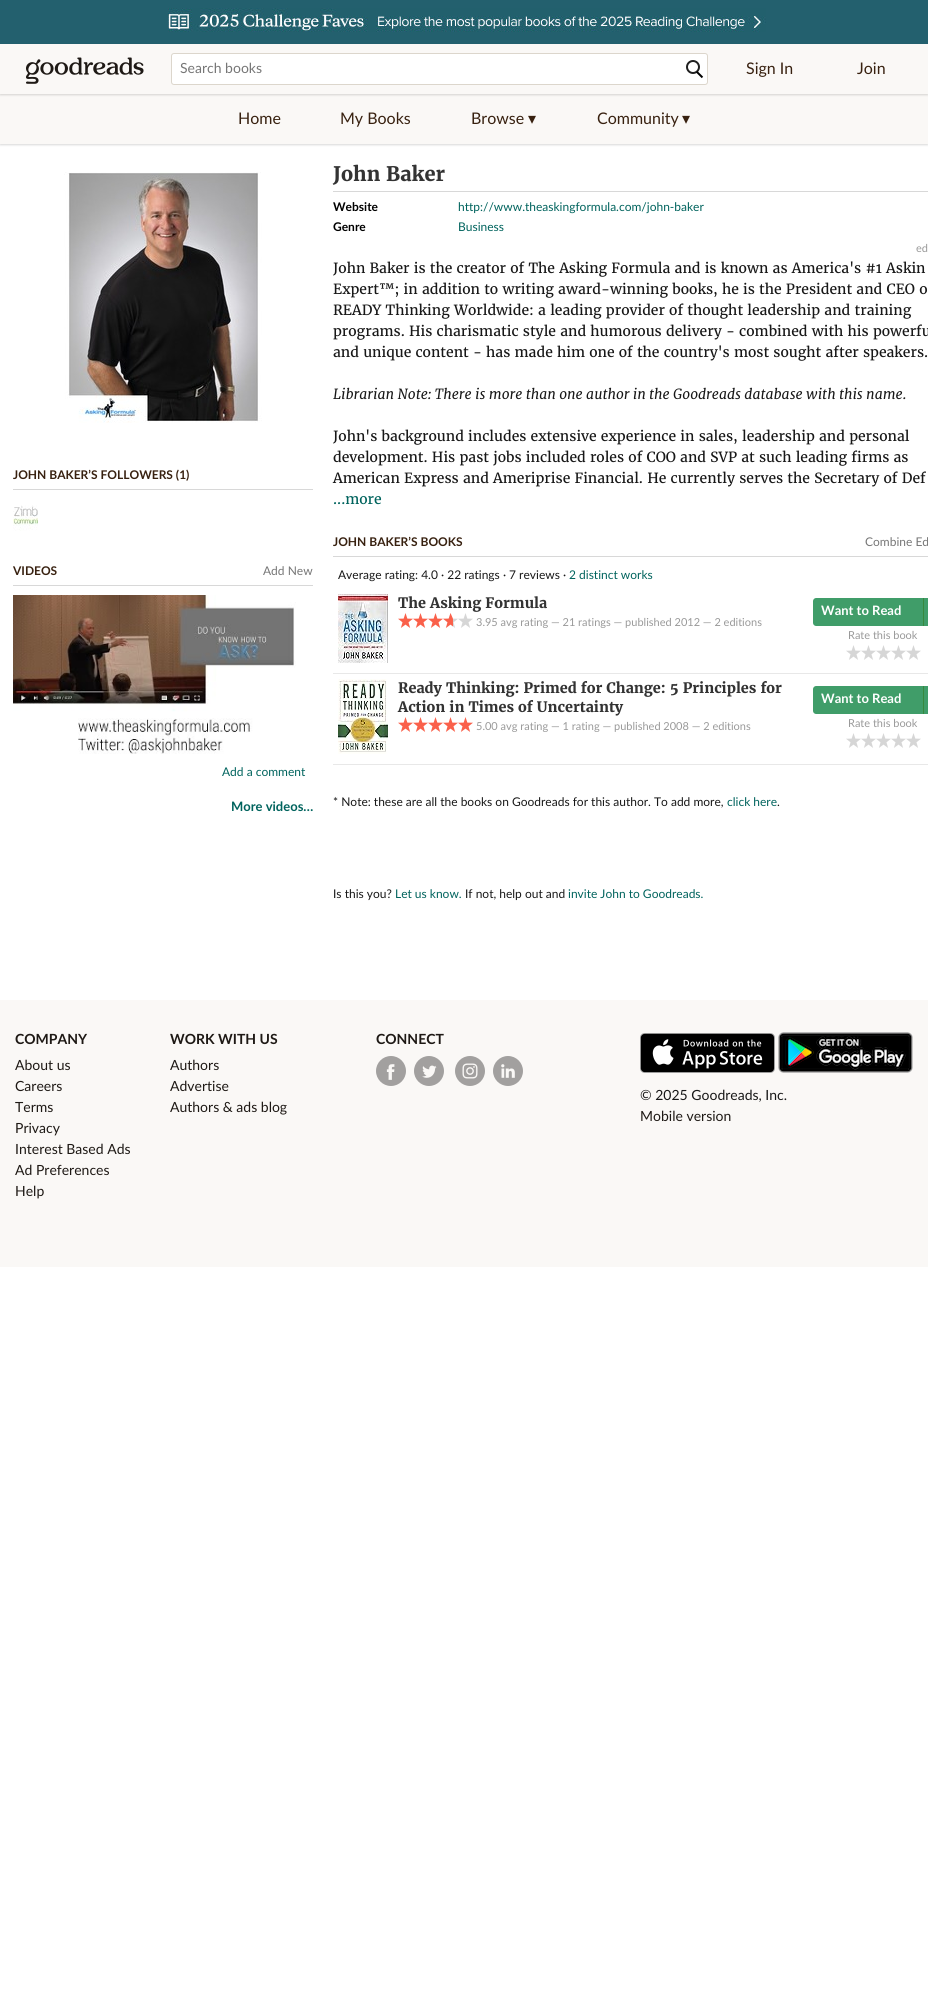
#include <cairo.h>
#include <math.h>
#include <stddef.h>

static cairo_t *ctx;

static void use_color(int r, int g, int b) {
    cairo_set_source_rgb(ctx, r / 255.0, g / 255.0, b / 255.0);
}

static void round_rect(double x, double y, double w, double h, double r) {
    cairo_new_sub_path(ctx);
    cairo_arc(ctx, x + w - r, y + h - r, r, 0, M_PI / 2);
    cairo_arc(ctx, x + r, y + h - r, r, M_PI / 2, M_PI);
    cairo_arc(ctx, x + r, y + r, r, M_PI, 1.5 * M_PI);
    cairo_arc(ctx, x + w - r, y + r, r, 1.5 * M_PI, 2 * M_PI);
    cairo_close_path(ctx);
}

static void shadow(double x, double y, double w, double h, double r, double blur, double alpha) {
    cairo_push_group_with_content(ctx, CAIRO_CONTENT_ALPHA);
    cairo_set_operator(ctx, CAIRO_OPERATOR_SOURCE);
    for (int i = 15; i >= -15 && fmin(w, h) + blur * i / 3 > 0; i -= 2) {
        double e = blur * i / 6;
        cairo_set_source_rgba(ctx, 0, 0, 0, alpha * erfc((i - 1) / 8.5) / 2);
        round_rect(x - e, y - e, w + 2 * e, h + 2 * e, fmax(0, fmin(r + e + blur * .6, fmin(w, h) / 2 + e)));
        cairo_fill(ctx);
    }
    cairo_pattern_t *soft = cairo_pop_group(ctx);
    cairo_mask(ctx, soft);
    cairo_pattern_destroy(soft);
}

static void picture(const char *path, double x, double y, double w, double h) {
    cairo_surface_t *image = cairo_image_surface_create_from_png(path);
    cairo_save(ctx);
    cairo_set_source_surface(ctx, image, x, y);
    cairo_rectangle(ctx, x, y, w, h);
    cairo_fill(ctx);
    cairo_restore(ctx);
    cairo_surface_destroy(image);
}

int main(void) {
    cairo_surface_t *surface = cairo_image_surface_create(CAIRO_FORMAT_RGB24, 928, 1996);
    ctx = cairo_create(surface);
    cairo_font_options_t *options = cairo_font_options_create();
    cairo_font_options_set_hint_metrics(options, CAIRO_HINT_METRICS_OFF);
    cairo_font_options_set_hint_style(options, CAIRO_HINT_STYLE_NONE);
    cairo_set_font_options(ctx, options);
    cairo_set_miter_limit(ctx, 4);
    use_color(255, 255, 255);
    cairo_paint(ctx);
    use_color(35, 96, 110);
    cairo_rectangle(ctx, 0, 0, 928, 44);
    cairo_fill(ctx);
    picture("img1.png", 168, 8, 598, 24);
    use_color(0, 0, 0);
    shadow(0, 95, 928, 50, 0, 1, 0.15);
    use_color(250, 248, 246);
    cairo_rectangle(ctx, 0, 94, 928, 50);
    cairo_fill(ctx);
    use_color(0, 0, 0);
    shadow(0, 45, 928, 50, 0, 1, 0.15);
    use_color(250, 248, 246);
    cairo_rectangle(ctx, 0, 44, 928, 50);
    cairo_fill(ctx);
    picture("img2.png", 26, 57, 118, 27);
    use_color(255, 255, 255);
    round_rect(171.5, 53.5, 536, 31, 2.5);
    cairo_fill_preserve(ctx);
    use_color(220, 214, 204);
    cairo_set_line_width(ctx, 1);
    cairo_stroke(ctx);
    cairo_select_font_face(ctx, "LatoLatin", CAIRO_FONT_SLANT_NORMAL, CAIRO_FONT_WEIGHT_NORMAL);
    cairo_set_font_size(ctx, 14);
    use_color(118, 118, 118);
    cairo_move_to(ctx, 180, 73);
    cairo_show_text(ctx, "Search books");
    picture("img3.png", 686, 60, 18, 19);
    cairo_set_font_size(ctx, 16);
    use_color(56, 33, 16);
    cairo_move_to(ctx, 746, 74);
    cairo_show_text(ctx, "Sign In");
    cairo_move_to(ctx, 857, 74);
    cairo_show_text(ctx, "Join");
    cairo_move_to(ctx, 238, 124);
    cairo_show_text(ctx, "Home");
    cairo_move_to(ctx, 340, 124);
    cairo_show_text(ctx, "My Books");
    cairo_move_to(ctx, 471, 124);
    cairo_show_text(ctx, "Browse");
    cairo_select_font_face(ctx, "DejaVu Sans", CAIRO_FONT_SLANT_NORMAL, CAIRO_FONT_WEIGHT_NORMAL);
    cairo_move_to(ctx, 528, 124);
    cairo_show_text(ctx, "▾");
    cairo_select_font_face(ctx, "LatoLatin", CAIRO_FONT_SLANT_NORMAL, CAIRO_FONT_WEIGHT_NORMAL);
    cairo_move_to(ctx, 597, 124);
    cairo_show_text(ctx, "Community");
    cairo_select_font_face(ctx, "DejaVu Sans", CAIRO_FONT_SLANT_NORMAL, CAIRO_FONT_WEIGHT_NORMAL);
    cairo_move_to(ctx, 682, 124);
    cairo_show_text(ctx, "▾");
    picture("img4.png", 64, 172, 198, 251);
    use_color(216, 216, 216);
    cairo_rectangle(ctx, 13, 489, 300, 1);
    cairo_fill(ctx);
    cairo_select_font_face(ctx, "LatoLatin", CAIRO_FONT_SLANT_NORMAL, CAIRO_FONT_WEIGHT_BOLD);
    cairo_set_font_size(ctx, 12);
    use_color(56, 33, 16);
    cairo_move_to(ctx, 13, 479);
    cairo_show_text(ctx, "JOHN BAKER’S FOLLOWERS (1)");
    picture("img5.png", 13, 505, 25, 26);
    use_color(216, 216, 216);
    cairo_rectangle(ctx, 13, 585, 300, 1);
    cairo_fill(ctx);
    use_color(56, 33, 16);
    cairo_move_to(ctx, 13, 575);
    cairo_show_text(ctx, "VIDEOS");
    cairo_select_font_face(ctx, "LatoLatin", CAIRO_FONT_SLANT_NORMAL, CAIRO_FONT_WEIGHT_NORMAL);
    use_color(118, 118, 118);
    cairo_move_to(ctx, 263, 575);
    cairo_show_text(ctx, "Add New");
    picture("img6.png", 13, 595, 283, 159);
    use_color(0, 99, 93);
    cairo_move_to(ctx, 222, 776);
    cairo_show_text(ctx, "Add a comment");
    cairo_select_font_face(ctx, "LatoLatin", CAIRO_FONT_SLANT_NORMAL, CAIRO_FONT_WEIGHT_BOLD);
    cairo_set_font_size(ctx, 13);
    cairo_move_to(ctx, 231, 811);
    cairo_show_text(ctx, "More videos…");
    use_color(216, 216, 216);
    cairo_rectangle(ctx, 333, 191, 595, 1);
    cairo_fill(ctx);
    cairo_select_font_face(ctx, "Merriweather", CAIRO_FONT_SLANT_NORMAL, CAIRO_FONT_WEIGHT_BOLD);
    cairo_set_font_size(ctx, 20);
    use_color(51, 51, 51);
    cairo_move_to(ctx, 333, 181);
    cairo_show_text(ctx, "John Baker");
    cairo_select_font_face(ctx, "LatoLatin", CAIRO_FONT_SLANT_NORMAL, CAIRO_FONT_WEIGHT_BOLD);
    cairo_set_font_size(ctx, 12);
    use_color(0, 0, 0);
    cairo_move_to(ctx, 333, 211);
    cairo_show_text(ctx, "Website");
    cairo_select_font_face(ctx, "LatoLatin", CAIRO_FONT_SLANT_NORMAL, CAIRO_FONT_WEIGHT_NORMAL);
    use_color(0, 99, 93);
    cairo_move_to(ctx, 458, 211);
    cairo_show_text(ctx, "http://www.theaskingformula.com/john-baker");
    cairo_select_font_face(ctx, "LatoLatin", CAIRO_FONT_SLANT_NORMAL, CAIRO_FONT_WEIGHT_BOLD);
    use_color(0, 0, 0);
    cairo_move_to(ctx, 333, 231);
    cairo_show_text(ctx, "Genre");
    cairo_select_font_face(ctx, "LatoLatin", CAIRO_FONT_SLANT_NORMAL, CAIRO_FONT_WEIGHT_NORMAL);
    use_color(0, 99, 93);
    cairo_move_to(ctx, 458, 231);
    cairo_show_text(ctx, "Business");
    cairo_set_font_size(ctx, 11);
    use_color(153, 153, 153);
    cairo_move_to(ctx, 916, 252);
    cairo_show_text(ctx, "ed");
    cairo_select_font_face(ctx, "Merriweather", CAIRO_FONT_SLANT_NORMAL, CAIRO_FONT_WEIGHT_NORMAL);
    cairo_set_font_size(ctx, 14);
    use_color(24, 24, 24);
    cairo_move_to(ctx, 333, 273);
    cairo_show_text(ctx, "John Baker is the creator of The Asking Formula and is known as America's #1 Askin");
    cairo_move_to(ctx, 333, 294);
    cairo_show_text(ctx, "Expert™; in addition to writing award-winning books, he is the President and CEO o");
    cairo_move_to(ctx, 333, 315);
    cairo_show_text(ctx, "READY Thinking Worldwide: a leading provider of thought leadership and training");
    cairo_move_to(ctx, 333, 336);
    cairo_show_text(ctx, "programs. His charismatic style and humorous delivery - combined with his powerfu");
    cairo_move_to(ctx, 333, 357);
    cairo_show_text(ctx, "and unique content - has made him one of the country's most sought after speakers.");
    cairo_select_font_face(ctx, "Merriweather", CAIRO_FONT_SLANT_ITALIC, CAIRO_FONT_WEIGHT_NORMAL);
    cairo_move_to(ctx, 333, 399);
    cairo_show_text(ctx, "Librarian Note: There is more than one author in the Goodreads database with this name.");
    cairo_select_font_face(ctx, "Merriweather", CAIRO_FONT_SLANT_NORMAL, CAIRO_FONT_WEIGHT_NORMAL);
    cairo_move_to(ctx, 333, 441);
    cairo_show_text(ctx, "John's background includes extensive experience in sales, leadership and personal");
    cairo_move_to(ctx, 333, 462);
    cairo_show_text(ctx, "development. His past jobs included roles of COO and SVP at such leading firms as");
    cairo_move_to(ctx, 333, 483);
    cairo_show_text(ctx, "American Express and Ameriprise Financial. He currently serves the Secretary of Def");
    use_color(0, 99, 93);
    cairo_move_to(ctx, 333, 504);
    cairo_show_text(ctx, "...more");
    use_color(216, 216, 216);
    cairo_rectangle(ctx, 333, 556, 595, 1);
    cairo_fill(ctx);
    cairo_select_font_face(ctx, "LatoLatin", CAIRO_FONT_SLANT_NORMAL, CAIRO_FONT_WEIGHT_BOLD);
    cairo_set_font_size(ctx, 12);
    use_color(56, 33, 16);
    cairo_move_to(ctx, 333, 546);
    cairo_show_text(ctx, "JOHN BAKER’S BOOKS");
    cairo_select_font_face(ctx, "LatoLatin", CAIRO_FONT_SLANT_NORMAL, CAIRO_FONT_WEIGHT_NORMAL);
    use_color(118, 118, 118);
    cairo_move_to(ctx, 865, 546);
    cairo_show_text(ctx, "Combine Ed");
    use_color(24, 24, 24);
    cairo_move_to(ctx, 338, 579);
    cairo_show_text(ctx, "Average rating: 4.0 · 22 ratings · 7 reviews ·");
    use_color(0, 99, 93);
    cairo_move_to(ctx, 569, 579);
    cairo_show_text(ctx, "2 distinct works");
    picture("img7.png", 338, 594, 50, 69);
    cairo_select_font_face(ctx, "Merriweather", CAIRO_FONT_SLANT_NORMAL, CAIRO_FONT_WEIGHT_BOLD);
    cairo_set_font_size(ctx, 14.4);
    use_color(51, 51, 51);
    cairo_move_to(ctx, 398, 608);
    cairo_show_text(ctx, "The Asking Formula");
    picture("img8.png", 398, 613, 15, 15);
    picture("img8.png", 413, 613, 15, 15);
    picture("img8.png", 428, 613, 15, 15);
    picture("img9.png", 443, 613, 15, 15);
    picture("img10.png", 458, 613, 15, 15);
    cairo_select_font_face(ctx, "LatoLatin", CAIRO_FONT_SLANT_NORMAL, CAIRO_FONT_WEIGHT_NORMAL);
    cairo_set_font_size(ctx, 11);
    use_color(153, 153, 153);
    cairo_move_to(ctx, 476, 626);
    cairo_show_text(ctx, "3.95 avg rating — 21 ratings — published 2012 — 2 editions");
    use_color(232, 232, 232);
    cairo_rectangle(ctx, 333, 673, 595, 1);
    cairo_fill(ctx);
    use_color(64, 157, 105);
    cairo_new_path(ctx);
    cairo_move_to(ctx, 816, 598);
    cairo_line_to(ctx, 923, 598);
    cairo_line_to(ctx, 923, 626);
    cairo_line_to(ctx, 816, 626);
    cairo_curve_to(ctx, 814.5, 626, 813, 624.5, 813, 623);
    cairo_line_to(ctx, 813, 601);
    cairo_curve_to(ctx, 813, 599.5, 814.5, 598, 816, 598);
    cairo_close_path(ctx);
    cairo_fill(ctx);
    cairo_select_font_face(ctx, "LatoLatin", CAIRO_FONT_SLANT_NORMAL, CAIRO_FONT_WEIGHT_BOLD);
    cairo_set_font_size(ctx, 13);
    use_color(255, 255, 255);
    cairo_move_to(ctx, 821, 615);
    cairo_show_text(ctx, "Want to Read");
    use_color(64, 157, 105);
    cairo_rectangle(ctx, 924, 598, 4, 28);
    cairo_fill(ctx);
    use_color(56, 136, 61);
    cairo_rectangle(ctx, 923, 598, 1, 28);
    cairo_fill(ctx);
    cairo_select_font_face(ctx, "LatoLatin", CAIRO_FONT_SLANT_NORMAL, CAIRO_FONT_WEIGHT_NORMAL);
    cairo_set_font_size(ctx, 11);
    use_color(153, 153, 153);
    cairo_move_to(ctx, 848, 639);
    cairo_show_text(ctx, "Rate this book");
    picture("img10.png", 846, 645, 15, 15);
    picture("img10.png", 861, 645, 15, 15);
    picture("img10.png", 876, 645, 15, 15);
    picture("img10.png", 891, 645, 15, 15);
    picture("img10.png", 906, 645, 15, 15);
    picture("img11.png", 338, 679, 50, 75);
    cairo_select_font_face(ctx, "Merriweather", CAIRO_FONT_SLANT_NORMAL, CAIRO_FONT_WEIGHT_BOLD);
    cairo_set_font_size(ctx, 14.4);
    use_color(51, 51, 51);
    cairo_move_to(ctx, 398, 693);
    cairo_show_text(ctx, "Ready Thinking: Primed for Change: 5 Principles for");
    cairo_move_to(ctx, 398, 712);
    cairo_show_text(ctx, "Action in Times of Uncertainty");
    picture("img8.png", 398, 717, 15, 15);
    picture("img8.png", 413, 717, 15, 15);
    picture("img8.png", 428, 717, 15, 15);
    picture("img8.png", 443, 717, 15, 15);
    picture("img8.png", 458, 717, 15, 15);
    cairo_select_font_face(ctx, "LatoLatin", CAIRO_FONT_SLANT_NORMAL, CAIRO_FONT_WEIGHT_NORMAL);
    cairo_set_font_size(ctx, 11);
    use_color(153, 153, 153);
    cairo_move_to(ctx, 476, 730);
    cairo_show_text(ctx, "5.00 avg rating — 1 rating — published 2008 — 2 editions");
    use_color(232, 232, 232);
    cairo_rectangle(ctx, 333, 764, 595, 1);
    cairo_fill(ctx);
    use_color(64, 157, 105);
    cairo_new_path(ctx);
    cairo_move_to(ctx, 816, 686);
    cairo_line_to(ctx, 923, 686);
    cairo_line_to(ctx, 923, 714);
    cairo_line_to(ctx, 816, 714);
    cairo_curve_to(ctx, 814.5, 714, 813, 712.5, 813, 711);
    cairo_line_to(ctx, 813, 689);
    cairo_curve_to(ctx, 813, 687.5, 814.5, 686, 816, 686);
    cairo_close_path(ctx);
    cairo_fill(ctx);
    cairo_select_font_face(ctx, "LatoLatin", CAIRO_FONT_SLANT_NORMAL, CAIRO_FONT_WEIGHT_BOLD);
    cairo_set_font_size(ctx, 13);
    use_color(255, 255, 255);
    cairo_move_to(ctx, 821, 703);
    cairo_show_text(ctx, "Want to Read");
    use_color(64, 157, 105);
    cairo_rectangle(ctx, 924, 686, 4, 28);
    cairo_fill(ctx);
    use_color(56, 136, 61);
    cairo_rectangle(ctx, 923, 686, 1, 28);
    cairo_fill(ctx);
    cairo_select_font_face(ctx, "LatoLatin", CAIRO_FONT_SLANT_NORMAL, CAIRO_FONT_WEIGHT_NORMAL);
    cairo_set_font_size(ctx, 11);
    use_color(153, 153, 153);
    cairo_move_to(ctx, 848, 727);
    cairo_show_text(ctx, "Rate this book");
    picture("img10.png", 846, 733, 15, 15);
    picture("img10.png", 861, 733, 15, 15);
    picture("img10.png", 876, 733, 15, 15);
    picture("img10.png", 891, 733, 15, 15);
    picture("img10.png", 906, 733, 15, 15);
    cairo_set_font_size(ctx, 12);
    use_color(24, 24, 24);
    cairo_move_to(ctx, 333, 806);
    cairo_show_text(ctx, "* Note: these are all the books on Goodreads for this author. To add more,");
    use_color(0, 99, 93);
    cairo_move_to(ctx, 727, 806);
    cairo_show_text(ctx, "click here");
    use_color(24, 24, 24);
    cairo_move_to(ctx, 777, 806);
    cairo_show_text(ctx, ".");
    cairo_move_to(ctx, 333, 898);
    cairo_show_text(ctx, "Is this you?");
    use_color(0, 99, 93);
    cairo_move_to(ctx, 395, 898);
    cairo_show_text(ctx, "Let us know.");
    use_color(24, 24, 24);
    cairo_move_to(ctx, 465, 898);
    cairo_show_text(ctx, "If not, help out and");
    use_color(0, 99, 93);
    cairo_move_to(ctx, 568, 898);
    cairo_show_text(ctx, "invite John to Goodreads.");
    use_color(250, 248, 246);
    cairo_rectangle(ctx, 0, 1000, 928, 267);
    cairo_fill(ctx);
    cairo_select_font_face(ctx, "LatoLatin", CAIRO_FONT_SLANT_NORMAL, CAIRO_FONT_WEIGHT_BOLD);
    cairo_set_font_size(ctx, 14);
    use_color(30, 25, 21);
    cairo_move_to(ctx, 15, 1044);
    cairo_show_text(ctx, "COMPANY");
    cairo_select_font_face(ctx, "LatoLatin", CAIRO_FONT_SLANT_NORMAL, CAIRO_FONT_WEIGHT_NORMAL);
    cairo_move_to(ctx, 15, 1070);
    cairo_show_text(ctx, "About us");
    cairo_move_to(ctx, 15, 1091);
    cairo_show_text(ctx, "Careers");
    cairo_move_to(ctx, 15, 1112);
    cairo_show_text(ctx, "Terms");
    cairo_move_to(ctx, 15, 1133);
    cairo_show_text(ctx, "Privacy");
    cairo_move_to(ctx, 15, 1154);
    cairo_show_text(ctx, "Interest Based Ads");
    cairo_move_to(ctx, 15, 1175);
    cairo_show_text(ctx, "Ad Preferences");
    cairo_move_to(ctx, 15, 1196);
    cairo_show_text(ctx, "Help");
    cairo_select_font_face(ctx, "LatoLatin", CAIRO_FONT_SLANT_NORMAL, CAIRO_FONT_WEIGHT_BOLD);
    cairo_move_to(ctx, 170, 1044);
    cairo_show_text(ctx, "WORK WITH US");
    cairo_select_font_face(ctx, "LatoLatin", CAIRO_FONT_SLANT_NORMAL, CAIRO_FONT_WEIGHT_NORMAL);
    cairo_move_to(ctx, 170, 1070);
    cairo_show_text(ctx, "Authors");
    cairo_move_to(ctx, 170, 1091);
    cairo_show_text(ctx, "Advertise");
    cairo_move_to(ctx, 170, 1112);
    cairo_show_text(ctx, "Authors & ads blog");
    cairo_select_font_face(ctx, "LatoLatin", CAIRO_FONT_SLANT_NORMAL, CAIRO_FONT_WEIGHT_BOLD);
    cairo_move_to(ctx, 376, 1044);
    cairo_show_text(ctx, "CONNECT");
    picture("img12.png", 376, 1056, 30, 30);
    picture("img13.png", 414, 1056, 30, 30);
    picture("img14.png", 455, 1056, 30, 30);
    picture("img15.png", 493, 1056, 30, 30);
    picture("img16.png", 640, 1033, 135, 40);
    picture("img17.png", 778, 1032, 135, 41);
    cairo_select_font_face(ctx, "LatoLatin", CAIRO_FONT_SLANT_NORMAL, CAIRO_FONT_WEIGHT_NORMAL);
    use_color(24, 24, 24);
    cairo_move_to(ctx, 640, 1100);
    cairo_show_text(ctx, "© 2025 Goodreads, Inc.");
    use_color(30, 25, 21);
    cairo_move_to(ctx, 640, 1121);
    cairo_show_text(ctx, "Mobile version");
    cairo_surface_write_to_png(surface, "result.png");
    cairo_font_options_destroy(options);
    cairo_destroy(ctx);
    cairo_surface_destroy(surface);
    return 0;
}
